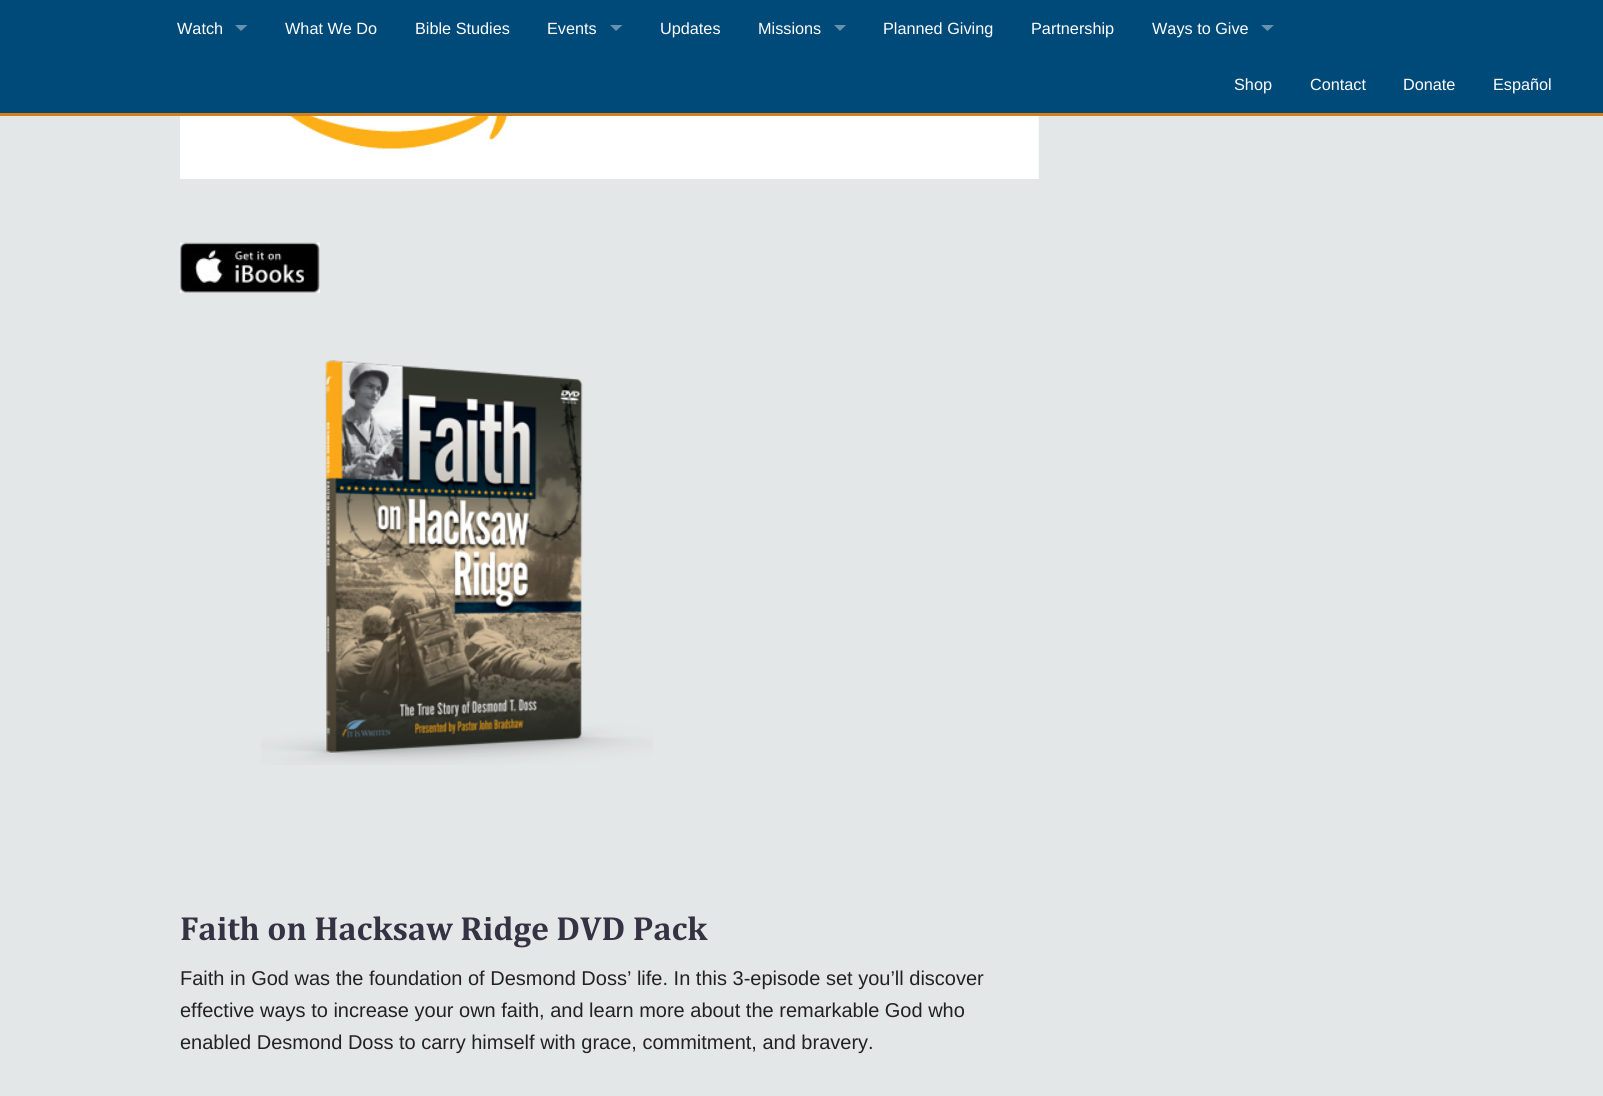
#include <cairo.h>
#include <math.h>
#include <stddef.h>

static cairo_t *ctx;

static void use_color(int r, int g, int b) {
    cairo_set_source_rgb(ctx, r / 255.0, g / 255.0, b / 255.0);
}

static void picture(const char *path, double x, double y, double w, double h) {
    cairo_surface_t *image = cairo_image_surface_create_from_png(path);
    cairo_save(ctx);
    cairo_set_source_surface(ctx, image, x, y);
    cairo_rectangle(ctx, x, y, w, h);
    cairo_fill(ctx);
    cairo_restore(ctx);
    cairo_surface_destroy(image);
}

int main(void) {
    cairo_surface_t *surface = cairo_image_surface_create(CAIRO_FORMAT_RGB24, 1603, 1096);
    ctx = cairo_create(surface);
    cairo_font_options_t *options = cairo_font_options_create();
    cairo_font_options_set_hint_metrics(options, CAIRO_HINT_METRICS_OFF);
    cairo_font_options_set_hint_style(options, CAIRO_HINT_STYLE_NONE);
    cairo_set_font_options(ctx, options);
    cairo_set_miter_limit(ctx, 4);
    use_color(228, 231, 231);
    cairo_paint(ctx);
    use_color(0, 74, 122);
    cairo_rectangle(ctx, 0, 0, 1603, 113);
    cairo_fill(ctx);
    cairo_select_font_face(ctx, "Liberation Sans", CAIRO_FONT_SLANT_NORMAL, CAIRO_FONT_WEIGHT_NORMAL);
    cairo_set_font_size(ctx, 16.25);
    use_color(255, 255, 255);
    cairo_move_to(ctx, 177, 34);
    cairo_show_text(ctx, "Watch");
    use_color(102, 146, 175);
    cairo_new_path(ctx);
    cairo_move_to(ctx, 235, 25);
    cairo_line_to(ctx, 247.5, 25);
    cairo_line_to(ctx, 241, 31);
    cairo_close_path(ctx);
    cairo_fill(ctx);
    use_color(255, 255, 255);
    cairo_move_to(ctx, 285, 34);
    cairo_show_text(ctx, "What We Do");
    cairo_move_to(ctx, 415, 34);
    cairo_show_text(ctx, "Bible Studies");
    cairo_move_to(ctx, 547, 34);
    cairo_show_text(ctx, "Events");
    use_color(102, 146, 175);
    cairo_new_path(ctx);
    cairo_move_to(ctx, 610, 25);
    cairo_line_to(ctx, 622.5, 25);
    cairo_line_to(ctx, 616, 31);
    cairo_close_path(ctx);
    cairo_fill(ctx);
    use_color(255, 255, 255);
    cairo_move_to(ctx, 660, 34);
    cairo_show_text(ctx, "Updates");
    cairo_move_to(ctx, 758, 34);
    cairo_show_text(ctx, "Missions");
    use_color(102, 146, 175);
    cairo_new_path(ctx);
    cairo_move_to(ctx, 834, 25);
    cairo_line_to(ctx, 846, 25);
    cairo_line_to(ctx, 840, 31);
    cairo_close_path(ctx);
    cairo_fill(ctx);
    use_color(255, 255, 255);
    cairo_move_to(ctx, 883, 34);
    cairo_show_text(ctx, "Planned Giving");
    cairo_move_to(ctx, 1031, 34);
    cairo_show_text(ctx, "Partnership");
    cairo_move_to(ctx, 1152, 34);
    cairo_show_text(ctx, "Ways to Give");
    use_color(102, 146, 175);
    cairo_new_path(ctx);
    cairo_move_to(ctx, 1261, 25);
    cairo_line_to(ctx, 1274, 25);
    cairo_line_to(ctx, 1267.5, 31);
    cairo_close_path(ctx);
    cairo_fill(ctx);
    use_color(255, 255, 255);
    cairo_move_to(ctx, 1234, 90);
    cairo_show_text(ctx, "Shop");
    cairo_move_to(ctx, 1310, 90);
    cairo_show_text(ctx, "Contact");
    cairo_move_to(ctx, 1403, 90);
    cairo_show_text(ctx, "Donate");
    cairo_move_to(ctx, 1493, 90);
    cairo_show_text(ctx, "Español");
    use_color(215, 127, 23);
    cairo_rectangle(ctx, 0, 113, 1603, 3);
    cairo_fill(ctx);
    picture("img1.png", 180, 116, 859, 63);
    picture("img2.png", 180, 242, 140, 51);
    picture("img3.png", 261, 360, 392, 405);
    cairo_select_font_face(ctx, "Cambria", CAIRO_FONT_SLANT_NORMAL, CAIRO_FONT_WEIGHT_BOLD);
    cairo_set_font_size(ctx, 33.75);
    use_color(51, 51, 68);
    cairo_move_to(ctx, 180, 940);
    cairo_show_text(ctx, "Faith on Hacksaw Ridge DVD Pack");
    cairo_select_font_face(ctx, "Liberation Sans", CAIRO_FONT_SLANT_NORMAL, CAIRO_FONT_WEIGHT_NORMAL);
    cairo_set_font_size(ctx, 20);
    use_color(34, 34, 34);
    cairo_move_to(ctx, 180, 985);
    cairo_show_text(ctx, "Faith in God was the foundation of Desmond Doss’ life. In this 3-episode set you’ll discover");
    cairo_move_to(ctx, 180, 1017);
    cairo_show_text(ctx, "effective ways to increase your own faith, and learn more about the remarkable God who");
    cairo_move_to(ctx, 180, 1049);
    cairo_show_text(ctx, "enabled Desmond Doss to carry himself with grace, commitment, and bravery.");
    cairo_surface_write_to_png(surface, "result.png");
    cairo_font_options_destroy(options);
    cairo_destroy(ctx);
    cairo_surface_destroy(surface);
    return 0;
}
